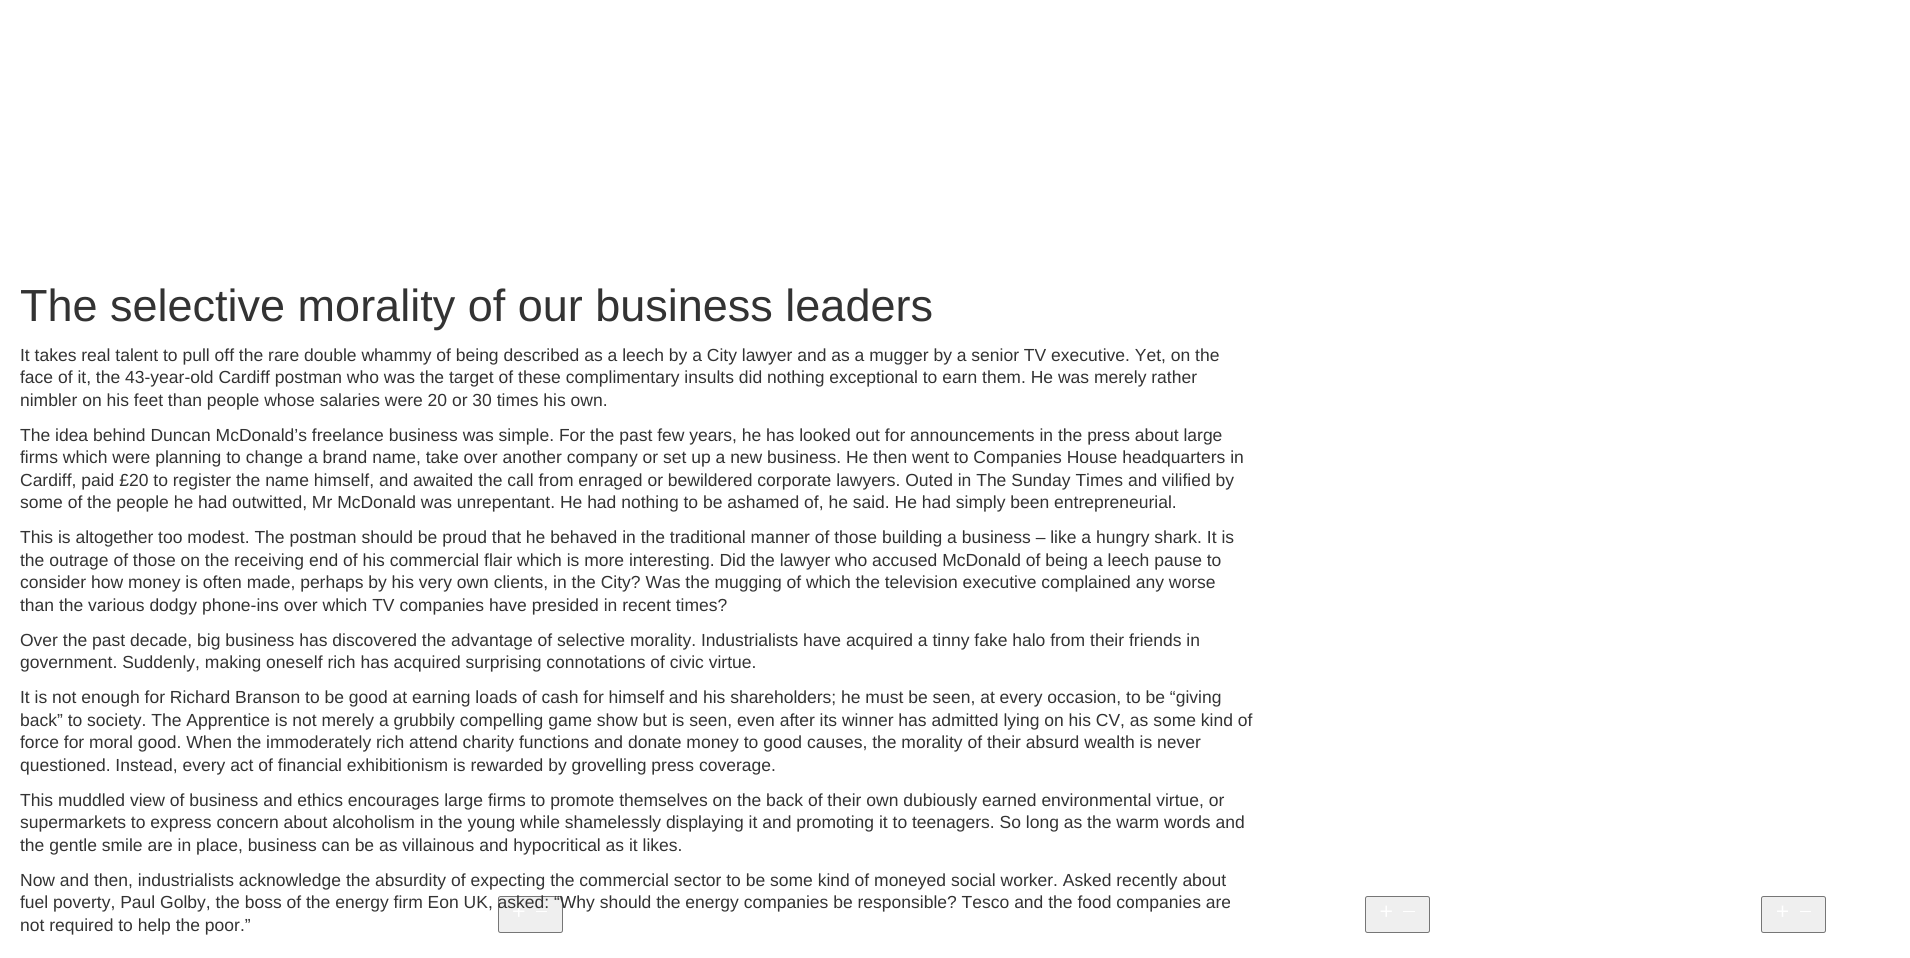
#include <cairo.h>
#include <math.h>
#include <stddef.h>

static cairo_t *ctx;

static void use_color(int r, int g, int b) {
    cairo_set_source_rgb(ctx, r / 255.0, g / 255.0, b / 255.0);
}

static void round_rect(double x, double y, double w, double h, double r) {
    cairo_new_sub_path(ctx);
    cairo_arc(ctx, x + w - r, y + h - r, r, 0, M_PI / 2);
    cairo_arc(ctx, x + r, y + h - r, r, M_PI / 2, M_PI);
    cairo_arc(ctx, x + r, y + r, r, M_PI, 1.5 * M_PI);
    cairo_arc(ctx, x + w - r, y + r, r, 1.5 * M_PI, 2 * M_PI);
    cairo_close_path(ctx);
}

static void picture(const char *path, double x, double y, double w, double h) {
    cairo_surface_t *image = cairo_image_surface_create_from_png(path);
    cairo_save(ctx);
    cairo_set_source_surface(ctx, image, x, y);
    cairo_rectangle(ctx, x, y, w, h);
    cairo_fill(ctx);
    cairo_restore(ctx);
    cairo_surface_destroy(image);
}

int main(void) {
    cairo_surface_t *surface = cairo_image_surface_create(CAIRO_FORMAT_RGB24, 1910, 958);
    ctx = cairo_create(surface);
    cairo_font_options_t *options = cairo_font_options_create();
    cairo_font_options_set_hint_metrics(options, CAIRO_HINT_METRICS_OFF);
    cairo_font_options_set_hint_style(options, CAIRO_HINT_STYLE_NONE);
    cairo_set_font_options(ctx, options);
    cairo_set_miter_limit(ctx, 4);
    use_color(255, 255, 255);
    cairo_paint(ctx);
    cairo_select_font_face(ctx, "Liberation Sans", CAIRO_FONT_SLANT_NORMAL, CAIRO_FONT_WEIGHT_NORMAL);
    cairo_set_font_size(ctx, 45);
    use_color(51, 51, 51);
    cairo_move_to(ctx, 20, 321);
    cairo_show_text(ctx, "The selective morality of our business leaders");
    cairo_set_font_size(ctx, 17.5);
    cairo_move_to(ctx, 20, 361);
    cairo_show_text(ctx, "It takes real talent to pull off the rare double whammy of being described as a leech by a City lawyer and as a mugger by a senior TV executive. Yet, on the");
    cairo_move_to(ctx, 20, 383);
    cairo_show_text(ctx, "face of it, the 43-year-old Cardiff postman who was the target of these complimentary insults did nothing exceptional to earn them. He was merely rather");
    cairo_move_to(ctx, 20, 406);
    cairo_show_text(ctx, "nimbler on his feet than people whose salaries were 20 or 30 times his own.");
    cairo_move_to(ctx, 20, 441);
    cairo_show_text(ctx, "The idea behind Duncan McDonald’s freelance business was simple. For the past few years, he has looked out for announcements in the press about large");
    cairo_move_to(ctx, 20, 463);
    cairo_show_text(ctx, "firms which were planning to change a brand name, take over another company or set up a new business. He then went to Companies House headquarters in");
    cairo_move_to(ctx, 20, 486);
    cairo_show_text(ctx, "Cardiff, paid £20 to register the name himself, and awaited the call from enraged or bewildered corporate lawyers. Outed in The Sunday Times and vilified by");
    cairo_move_to(ctx, 20, 508);
    cairo_show_text(ctx, "some of the people he had outwitted, Mr McDonald was unrepentant. He had nothing to be ashamed of, he said. He had simply been entrepreneurial.");
    cairo_move_to(ctx, 20, 543);
    cairo_show_text(ctx, "This is altogether too modest. The postman should be proud that he behaved in the traditional manner of those building a business – like a hungry shark. It is");
    cairo_move_to(ctx, 20, 566);
    cairo_show_text(ctx, "the outrage of those on the receiving end of his commercial flair which is more interesting. Did the lawyer who accused McDonald of being a leech pause to");
    cairo_move_to(ctx, 20, 588);
    cairo_show_text(ctx, "consider how money is often made, perhaps by his very own clients, in the City? Was the mugging of which the television executive complained any worse");
    cairo_move_to(ctx, 20, 611);
    cairo_show_text(ctx, "than the various dodgy phone-ins over which TV companies have presided in recent times?");
    cairo_move_to(ctx, 20, 646);
    cairo_show_text(ctx, "Over the past decade, big business has discovered the advantage of selective morality. Industrialists have acquired a tinny fake halo from their friends in");
    cairo_move_to(ctx, 20, 668);
    cairo_show_text(ctx, "government. Suddenly, making oneself rich has acquired surprising connotations of civic virtue.");
    cairo_move_to(ctx, 20, 703);
    cairo_show_text(ctx, "It is not enough for Richard Branson to be good at earning loads of cash for himself and his shareholders; he must be seen, at every occasion, to be “giving");
    cairo_move_to(ctx, 20, 726);
    cairo_show_text(ctx, "back” to society. The Apprentice is not merely a grubbily compelling game show but is seen, even after its winner has admitted lying on his CV, as some kind of");
    cairo_move_to(ctx, 20, 748);
    cairo_show_text(ctx, "force for moral good. When the immoderately rich attend charity functions and donate money to good causes, the morality of their absurd wealth is never");
    cairo_move_to(ctx, 20, 771);
    cairo_show_text(ctx, "questioned. Instead, every act of financial exhibitionism is rewarded by grovelling press coverage.");
    cairo_move_to(ctx, 20, 806);
    cairo_show_text(ctx, "This muddled view of business and ethics encourages large firms to promote themselves on the back of their own dubiously earned environmental virtue, or");
    cairo_move_to(ctx, 20, 828);
    cairo_show_text(ctx, "supermarkets to express concern about alcoholism in the young while shamelessly displaying it and promoting it to teenagers. So long as the warm words and");
    cairo_move_to(ctx, 20, 851);
    cairo_show_text(ctx, "the gentle smile are in place, business can be as villainous and hypocritical as it likes.");
    cairo_move_to(ctx, 20, 886);
    cairo_show_text(ctx, "Now and then, industrialists acknowledge the absurdity of expecting the commercial sector to be some kind of moneyed social worker. Asked recently about");
    use_color(239, 239, 239);
    round_rect(498.5, 896.5, 64, 36, 2);
    cairo_fill_preserve(ctx);
    use_color(118, 118, 118);
    cairo_set_line_width(ctx, 1);
    cairo_stroke(ctx);
    picture("img1.png", 513, 905, 12, 12);
    use_color(255, 255, 255);
    cairo_rectangle(ctx, 536, 911, 11, 1);
    cairo_fill(ctx);
    use_color(51, 51, 51);
    cairo_move_to(ctx, 20, 908);
    cairo_show_text(ctx, "fuel poverty, Paul Golby, the boss of the energy firm Eon UK, asked: “Why should the energy companies be responsible? Tesco and the food companies are");
    cairo_move_to(ctx, 20, 931);
    cairo_show_text(ctx, "not required to help the poor.”");
    use_color(239, 239, 239);
    round_rect(1365.5, 896.5, 64, 36, 2);
    cairo_fill_preserve(ctx);
    use_color(118, 118, 118);
    cairo_stroke(ctx);
    picture("img2.png", 1380, 905, 12, 12);
    use_color(255, 255, 255);
    cairo_rectangle(ctx, 1403, 911, 12, 1);
    cairo_fill(ctx);
    use_color(239, 239, 239);
    round_rect(1761.5, 896.5, 64, 36, 2);
    cairo_fill_preserve(ctx);
    use_color(118, 118, 118);
    cairo_stroke(ctx);
    picture("img3.png", 1777, 905, 11, 12);
    use_color(255, 255, 255);
    cairo_rectangle(ctx, 1800, 911, 11, 1);
    cairo_fill(ctx);
    cairo_surface_write_to_png(surface, "result.png");
    cairo_font_options_destroy(options);
    cairo_destroy(ctx);
    cairo_surface_destroy(surface);
    return 0;
}
